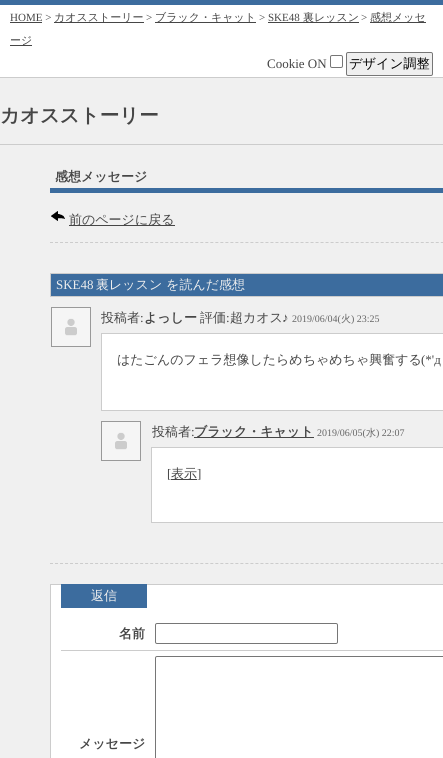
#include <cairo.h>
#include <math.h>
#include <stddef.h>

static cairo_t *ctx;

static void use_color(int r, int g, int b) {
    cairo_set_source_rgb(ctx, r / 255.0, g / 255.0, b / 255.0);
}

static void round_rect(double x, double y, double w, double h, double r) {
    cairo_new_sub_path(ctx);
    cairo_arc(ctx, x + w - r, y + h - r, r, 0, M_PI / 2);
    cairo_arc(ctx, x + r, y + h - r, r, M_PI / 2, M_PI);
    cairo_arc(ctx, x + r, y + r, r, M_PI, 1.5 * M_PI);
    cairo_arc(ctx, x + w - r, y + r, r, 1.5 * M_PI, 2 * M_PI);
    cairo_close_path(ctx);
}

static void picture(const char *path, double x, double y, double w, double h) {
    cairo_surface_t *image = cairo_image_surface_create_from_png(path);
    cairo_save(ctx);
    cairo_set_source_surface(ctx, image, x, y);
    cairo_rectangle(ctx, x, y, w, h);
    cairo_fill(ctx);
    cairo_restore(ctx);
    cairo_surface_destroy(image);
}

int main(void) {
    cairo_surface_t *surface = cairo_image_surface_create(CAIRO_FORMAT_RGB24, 443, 758);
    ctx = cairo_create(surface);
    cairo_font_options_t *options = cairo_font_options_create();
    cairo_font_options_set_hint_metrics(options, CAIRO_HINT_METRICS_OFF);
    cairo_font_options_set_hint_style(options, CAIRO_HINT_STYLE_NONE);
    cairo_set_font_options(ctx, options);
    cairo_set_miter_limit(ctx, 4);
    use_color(240, 240, 240);
    cairo_paint(ctx);
    use_color(60, 108, 158);
    cairo_rectangle(ctx, 0, 0, 443, 5);
    cairo_fill(ctx);
    use_color(255, 255, 255);
    cairo_rectangle(ctx, 0, 5, 443, 72);
    cairo_fill(ctx);
    use_color(204, 204, 204);
    cairo_rectangle(ctx, 0, 77, 443, 1);
    cairo_fill(ctx);
    cairo_select_font_face(ctx, "Liberation Serif", CAIRO_FONT_SLANT_NORMAL, CAIRO_FONT_WEIGHT_NORMAL);
    cairo_set_font_size(ctx, 11);
    use_color(70, 70, 70);
    cairo_move_to(ctx, 10, 21);
    cairo_show_text(ctx, "HOME >");
    cairo_rectangle(ctx, 10, 22, 32, 1);
    cairo_fill(ctx);
    cairo_rectangle(ctx, 54, 22, 90, 1);
    cairo_fill(ctx);
    cairo_select_font_face(ctx, "WenQuanYi Zen Hei Medium", CAIRO_FONT_SLANT_NORMAL, CAIRO_FONT_WEIGHT_NORMAL);
    cairo_move_to(ctx, 54, 21);
    cairo_show_text(ctx, "カオスストーリー");
    cairo_select_font_face(ctx, "Liberation Serif", CAIRO_FONT_SLANT_NORMAL, CAIRO_FONT_WEIGHT_NORMAL);
    cairo_move_to(ctx, 146, 21);
    cairo_show_text(ctx, ">");
    cairo_rectangle(ctx, 155, 22, 101, 1);
    cairo_fill(ctx);
    cairo_select_font_face(ctx, "WenQuanYi Zen Hei Medium", CAIRO_FONT_SLANT_NORMAL, CAIRO_FONT_WEIGHT_NORMAL);
    cairo_move_to(ctx, 155, 21);
    cairo_show_text(ctx, "ブラック・キャット");
    cairo_select_font_face(ctx, "Liberation Serif", CAIRO_FONT_SLANT_NORMAL, CAIRO_FONT_WEIGHT_NORMAL);
    cairo_move_to(ctx, 259, 21);
    cairo_show_text(ctx, "> SKE48");
    cairo_rectangle(ctx, 268, 22, 91, 1);
    cairo_fill(ctx);
    cairo_select_font_face(ctx, "WenQuanYi Zen Hei Medium", CAIRO_FONT_SLANT_NORMAL, CAIRO_FONT_WEIGHT_NORMAL);
    cairo_move_to(ctx, 303, 21);
    cairo_show_text(ctx, "裏レッスン");
    cairo_select_font_face(ctx, "Liberation Serif", CAIRO_FONT_SLANT_NORMAL, CAIRO_FONT_WEIGHT_NORMAL);
    cairo_move_to(ctx, 361, 21);
    cairo_show_text(ctx, ">");
    cairo_rectangle(ctx, 370, 22, 56, 1);
    cairo_fill(ctx);
    cairo_select_font_face(ctx, "WenQuanYi Zen Hei Medium", CAIRO_FONT_SLANT_NORMAL, CAIRO_FONT_WEIGHT_NORMAL);
    cairo_move_to(ctx, 370, 21);
    cairo_show_text(ctx, "感想メッセ");
    cairo_rectangle(ctx, 10, 45, 22, 1);
    cairo_fill(ctx);
    cairo_move_to(ctx, 10, 44);
    cairo_show_text(ctx, "ージ");
    cairo_select_font_face(ctx, "Liberation Serif", CAIRO_FONT_SLANT_NORMAL, CAIRO_FONT_WEIGHT_NORMAL);
    cairo_set_font_size(ctx, 13);
    cairo_move_to(ctx, 267, 68);
    cairo_show_text(ctx, "Cookie ON");
    round_rect(330.5, 55.5, 12, 12, 1.5);
    use_color(118, 118, 118);
    cairo_set_line_width(ctx, 1);
    cairo_stroke(ctx);
    use_color(239, 239, 239);
    round_rect(346.5, 52.5, 86, 23, 1.5);
    cairo_fill_preserve(ctx);
    use_color(118, 118, 118);
    cairo_stroke(ctx);
    cairo_select_font_face(ctx, "WenQuanYi Zen Hei Medium", CAIRO_FONT_SLANT_NORMAL, CAIRO_FONT_WEIGHT_NORMAL);
    cairo_set_font_size(ctx, 13.25);
    use_color(0, 0, 0);
    cairo_move_to(ctx, 349, 68);
    cairo_show_text(ctx, "デザイン調整");
    use_color(204, 204, 204);
    cairo_rectangle(ctx, 0, 144, 443, 1);
    cairo_fill(ctx);
    cairo_select_font_face(ctx, "WenQuanYi Zen Hei", CAIRO_FONT_SLANT_NORMAL, CAIRO_FONT_WEIGHT_BOLD);
    cairo_set_font_size(ctx, 19.5);
    use_color(70, 70, 70);
    cairo_move_to(ctx, 0, 122);
    cairo_show_text(ctx, "カオスストーリー");
    use_color(60, 108, 158);
    cairo_rectangle(ctx, 50, 188, 393, 5);
    cairo_fill(ctx);
    cairo_set_font_size(ctx, 13);
    use_color(70, 70, 70);
    cairo_move_to(ctx, 55, 181);
    cairo_show_text(ctx, "感想メッセージ");
    picture("img1.png", 51, 211, 14, 10);
    cairo_rectangle(ctx, 69, 225, 106, 1);
    cairo_fill(ctx);
    cairo_select_font_face(ctx, "WenQuanYi Zen Hei Medium", CAIRO_FONT_SLANT_NORMAL, CAIRO_FONT_WEIGHT_NORMAL);
    cairo_move_to(ctx, 69, 224);
    cairo_show_text(ctx, "前のページに戻る");
    cairo_new_path(ctx);
    cairo_move_to(ctx, 50, 242.5);
    cairo_line_to(ctx, 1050, 242.5);
    use_color(204, 204, 204);
    cairo_set_dash(ctx, (double[]){3, 2.01}, 2, 0);
    cairo_stroke(ctx);
    cairo_new_path(ctx);
    cairo_move_to(ctx, 50, 563.5);
    cairo_line_to(ctx, 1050, 563.5);
    cairo_stroke(ctx);
    use_color(60, 108, 158);
    cairo_rectangle(ctx, 51, 274, 392, 22);
    cairo_fill(ctx);
    use_color(204, 204, 204);
    cairo_rectangle(ctx, 50, 273, 393, 1);
    cairo_fill(ctx);
    cairo_rectangle(ctx, 50, 296, 393, 1);
    cairo_fill(ctx);
    cairo_rectangle(ctx, 50, 273, 1, 24);
    cairo_fill(ctx);
    cairo_select_font_face(ctx, "Liberation Serif", CAIRO_FONT_SLANT_NORMAL, CAIRO_FONT_WEIGHT_NORMAL);
    use_color(238, 238, 238);
    cairo_move_to(ctx, 56, 289);
    cairo_show_text(ctx, "SKE48");
    cairo_select_font_face(ctx, "WenQuanYi Zen Hei Medium", CAIRO_FONT_SLANT_NORMAL, CAIRO_FONT_WEIGHT_NORMAL);
    cairo_move_to(ctx, 96, 289);
    cairo_show_text(ctx, "裏レッスン を読んだ感想");
    cairo_rectangle(ctx, 51.5, 307.5, 39, 39);
    use_color(153, 153, 153);
    cairo_set_dash(ctx, NULL, 0, 0);
    cairo_stroke(ctx);
    picture("img2.png", 52, 308, 38, 38);
    use_color(70, 70, 70);
    cairo_move_to(ctx, 101, 322);
    cairo_show_text(ctx, "投稿者");
    cairo_select_font_face(ctx, "Liberation Serif", CAIRO_FONT_SLANT_NORMAL, CAIRO_FONT_WEIGHT_NORMAL);
    cairo_move_to(ctx, 140, 322);
    cairo_show_text(ctx, ":");
    cairo_select_font_face(ctx, "WenQuanYi Zen Hei", CAIRO_FONT_SLANT_NORMAL, CAIRO_FONT_WEIGHT_BOLD);
    cairo_move_to(ctx, 144, 322);
    cairo_show_text(ctx, "よっしー");
    cairo_select_font_face(ctx, "WenQuanYi Zen Hei Medium", CAIRO_FONT_SLANT_NORMAL, CAIRO_FONT_WEIGHT_NORMAL);
    cairo_move_to(ctx, 200, 322);
    cairo_show_text(ctx, "評価 超カオス");
    cairo_select_font_face(ctx, "Liberation Serif", CAIRO_FONT_SLANT_NORMAL, CAIRO_FONT_WEIGHT_NORMAL);
    cairo_move_to(ctx, 282, 322);
    cairo_show_text(ctx, "♪");
    cairo_select_font_face(ctx, "WenQuanYi Zen Hei Medium", CAIRO_FONT_SLANT_NORMAL, CAIRO_FONT_WEIGHT_NORMAL);
    cairo_set_font_size(ctx, 10);
    use_color(102, 102, 102);
    cairo_move_to(ctx, 341, 322);
    cairo_show_text(ctx, "火");
    cairo_select_font_face(ctx, "Liberation Serif", CAIRO_FONT_SLANT_NORMAL, CAIRO_FONT_WEIGHT_NORMAL);
    cairo_set_font_size(ctx, 13);
    use_color(70, 70, 70);
    cairo_move_to(ctx, 226, 322);
    cairo_show_text(ctx, ":");
    cairo_set_font_size(ctx, 10);
    use_color(102, 102, 102);
    cairo_move_to(ctx, 292, 322);
    cairo_show_text(ctx, "2019/06/04(");
    cairo_move_to(ctx, 351, 322);
    cairo_show_text(ctx, ") 23:25");
    use_color(255, 255, 255);
    cairo_rectangle(ctx, 102, 334, 341, 76);
    cairo_fill(ctx);
    use_color(204, 204, 204);
    cairo_rectangle(ctx, 101, 333, 342, 1);
    cairo_fill(ctx);
    cairo_rectangle(ctx, 101, 410, 342, 1);
    cairo_fill(ctx);
    cairo_rectangle(ctx, 101, 333, 1, 78);
    cairo_fill(ctx);
    cairo_select_font_face(ctx, "WenQuanYi Zen Hei Medium", CAIRO_FONT_SLANT_NORMAL, CAIRO_FONT_WEIGHT_NORMAL);
    cairo_set_font_size(ctx, 13);
    use_color(70, 70, 70);
    cairo_move_to(ctx, 117, 364);
    cairo_show_text(ctx, "はたごんのフェラ想像したらめちゃめちゃ興奮する");
    cairo_select_font_face(ctx, "Liberation Serif", CAIRO_FONT_SLANT_NORMAL, CAIRO_FONT_WEIGHT_NORMAL);
    cairo_move_to(ctx, 421, 364);
    cairo_show_text(ctx, "(*'д");
    cairo_rectangle(ctx, 101.5, 421.5, 39, 39);
    use_color(153, 153, 153);
    cairo_stroke(ctx);
    picture("img2.png", 102, 422, 38, 38);
    cairo_select_font_face(ctx, "WenQuanYi Zen Hei Medium", CAIRO_FONT_SLANT_NORMAL, CAIRO_FONT_WEIGHT_NORMAL);
    use_color(70, 70, 70);
    cairo_move_to(ctx, 152, 436);
    cairo_show_text(ctx, "投稿者");
    cairo_select_font_face(ctx, "Liberation Serif", CAIRO_FONT_SLANT_NORMAL, CAIRO_FONT_WEIGHT_NORMAL);
    cairo_move_to(ctx, 191, 436);
    cairo_show_text(ctx, ":");
    cairo_rectangle(ctx, 194, 437, 120, 1);
    cairo_fill(ctx);
    cairo_select_font_face(ctx, "WenQuanYi Zen Hei", CAIRO_FONT_SLANT_NORMAL, CAIRO_FONT_WEIGHT_BOLD);
    cairo_move_to(ctx, 194, 436);
    cairo_show_text(ctx, "ブラック・キャット");
    cairo_select_font_face(ctx, "Liberation Serif", CAIRO_FONT_SLANT_NORMAL, CAIRO_FONT_WEIGHT_NORMAL);
    cairo_set_font_size(ctx, 10);
    use_color(102, 102, 102);
    cairo_move_to(ctx, 317, 436);
    cairo_show_text(ctx, "2019/06/05(");
    cairo_select_font_face(ctx, "WenQuanYi Zen Hei Medium", CAIRO_FONT_SLANT_NORMAL, CAIRO_FONT_WEIGHT_NORMAL);
    cairo_move_to(ctx, 366, 436);
    cairo_show_text(ctx, "水");
    cairo_select_font_face(ctx, "Liberation Serif", CAIRO_FONT_SLANT_NORMAL, CAIRO_FONT_WEIGHT_NORMAL);
    cairo_move_to(ctx, 376, 436);
    cairo_show_text(ctx, ") 22:07");
    use_color(255, 255, 255);
    cairo_rectangle(ctx, 152, 448, 291, 74);
    cairo_fill(ctx);
    use_color(204, 204, 204);
    cairo_rectangle(ctx, 151, 447, 292, 1);
    cairo_fill(ctx);
    cairo_rectangle(ctx, 151, 522, 292, 1);
    cairo_fill(ctx);
    cairo_rectangle(ctx, 151, 447, 1, 76);
    cairo_fill(ctx);
    cairo_set_font_size(ctx, 13);
    use_color(70, 70, 70);
    cairo_move_to(ctx, 167, 478);
    cairo_show_text(ctx, "[");
    cairo_rectangle(ctx, 171, 479, 26, 1);
    cairo_fill(ctx);
    cairo_select_font_face(ctx, "WenQuanYi Zen Hei Medium", CAIRO_FONT_SLANT_NORMAL, CAIRO_FONT_WEIGHT_NORMAL);
    cairo_move_to(ctx, 171, 478);
    cairo_show_text(ctx, "表示");
    cairo_select_font_face(ctx, "Liberation Serif", CAIRO_FONT_SLANT_NORMAL, CAIRO_FONT_WEIGHT_NORMAL);
    cairo_move_to(ctx, 197, 478);
    cairo_show_text(ctx, "]");
    use_color(255, 255, 255);
    cairo_rectangle(ctx, 50.5, 584.5, 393, 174);
    cairo_fill_preserve(ctx);
    use_color(204, 204, 204);
    cairo_stroke(ctx);
    use_color(60, 108, 158);
    cairo_rectangle(ctx, 61, 584, 86, 24);
    cairo_fill(ctx);
    cairo_select_font_face(ctx, "WenQuanYi Zen Hei Medium", CAIRO_FONT_SLANT_NORMAL, CAIRO_FONT_WEIGHT_NORMAL);
    use_color(238, 238, 238);
    cairo_move_to(ctx, 91, 600);
    cairo_show_text(ctx, "返信");
    use_color(204, 204, 204);
    cairo_rectangle(ctx, 61, 650, 382, 1);
    cairo_fill(ctx);
    round_rect(155.5, 623.5, 182, 20, 1.5);
    use_color(118, 118, 118);
    cairo_stroke(ctx);
    cairo_select_font_face(ctx, "WenQuanYi Zen Hei", CAIRO_FONT_SLANT_NORMAL, CAIRO_FONT_WEIGHT_BOLD);
    use_color(70, 70, 70);
    cairo_move_to(ctx, 119, 638);
    cairo_show_text(ctx, "名前");
    cairo_move_to(ctx, 79, 748);
    cairo_show_text(ctx, "メッセージ");
    round_rect(155.5, 656.5, 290, 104, 1.5);
    use_color(118, 118, 118);
    cairo_stroke(ctx);
    cairo_surface_write_to_png(surface, "result.png");
    cairo_font_options_destroy(options);
    cairo_destroy(ctx);
    cairo_surface_destroy(surface);
    return 0;
}
